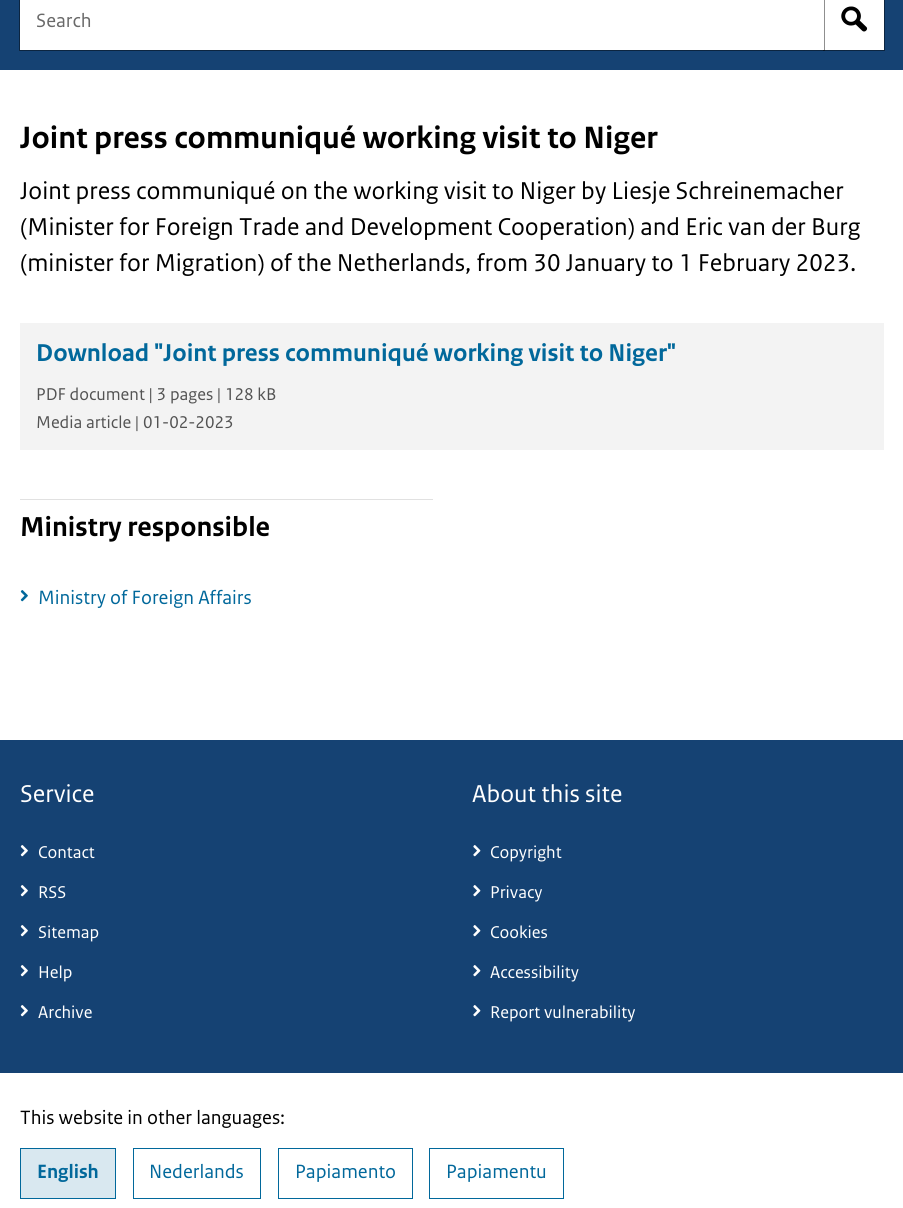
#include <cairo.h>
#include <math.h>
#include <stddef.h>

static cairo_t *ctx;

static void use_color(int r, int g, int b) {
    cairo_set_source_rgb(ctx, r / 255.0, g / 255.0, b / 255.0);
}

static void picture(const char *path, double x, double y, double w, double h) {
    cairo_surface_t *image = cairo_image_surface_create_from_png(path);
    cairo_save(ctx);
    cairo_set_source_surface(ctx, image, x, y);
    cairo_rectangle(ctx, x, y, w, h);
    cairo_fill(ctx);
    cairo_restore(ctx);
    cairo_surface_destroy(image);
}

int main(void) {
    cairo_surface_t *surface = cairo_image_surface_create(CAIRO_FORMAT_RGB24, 903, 1208);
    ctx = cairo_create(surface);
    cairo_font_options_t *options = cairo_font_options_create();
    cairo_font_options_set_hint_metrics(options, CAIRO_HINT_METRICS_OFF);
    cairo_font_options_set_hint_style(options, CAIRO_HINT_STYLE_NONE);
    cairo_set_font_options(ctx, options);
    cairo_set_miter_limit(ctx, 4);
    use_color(255, 255, 255);
    cairo_paint(ctx);
    use_color(21, 66, 115);
    cairo_rectangle(ctx, 0, 0, 903, 70);
    cairo_fill(ctx);
    use_color(255, 255, 255);
    cairo_rectangle(ctx, 823.5, -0.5, 61, 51);
    cairo_fill_preserve(ctx);
    use_color(12, 37, 64);
    cairo_set_line_width(ctx, 1);
    cairo_stroke(ctx);
    cairo_rectangle(ctx, 19.5, -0.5, 805, 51);
    cairo_set_source_rgba(ctx, 0, 0, 0, 0.44);
    cairo_stroke(ctx);
    use_color(255, 255, 255);
    cairo_rectangle(ctx, 20, 0, 804, 50);
    cairo_fill(ctx);
    cairo_select_font_face(ctx, "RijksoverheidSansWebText", CAIRO_FONT_SLANT_NORMAL, CAIRO_FONT_WEIGHT_NORMAL);
    cairo_set_font_size(ctx, 20.25);
    use_color(105, 105, 105);
    cairo_move_to(ctx, 36, 27);
    cairo_show_text(ctx, "Search");
    picture("img1.png", 841, 6, 27, 26);
    cairo_select_font_face(ctx, "RijksoverheidSansWebText", CAIRO_FONT_SLANT_NORMAL, CAIRO_FONT_WEIGHT_BOLD);
    cairo_set_font_size(ctx, 32.4);
    use_color(0, 0, 0);
    cairo_move_to(ctx, 20, 148);
    cairo_show_text(ctx, "Joint press communiqué working visit to Niger");
    cairo_select_font_face(ctx, "RijksoverheidSansWebText", CAIRO_FONT_SLANT_NORMAL, CAIRO_FONT_WEIGHT_NORMAL);
    cairo_set_font_size(ctx, 25.6);
    cairo_move_to(ctx, 20, 199);
    cairo_show_text(ctx, "Joint press communiqué on the working visit to Niger by Liesje Schreinemacher");
    cairo_move_to(ctx, 20, 235);
    cairo_show_text(ctx, "(Minister for Foreign Trade and Development Cooperation) and Eric van der Burg");
    cairo_move_to(ctx, 20, 271);
    cairo_show_text(ctx, "(minister for Migration) of the Netherlands, from 30 January to 1 February 2023.");
    use_color(243, 243, 243);
    cairo_rectangle(ctx, 20, 323, 864, 127);
    cairo_fill(ctx);
    cairo_select_font_face(ctx, "RijksoverheidSansWebText", CAIRO_FONT_SLANT_NORMAL, CAIRO_FONT_WEIGHT_BOLD);
    use_color(1, 104, 155);
    cairo_move_to(ctx, 36, 361);
    cairo_show_text(ctx, "Download \"Joint press communiqué working visit to Niger\"");
    cairo_select_font_face(ctx, "RijksoverheidSansWebText", CAIRO_FONT_SLANT_NORMAL, CAIRO_FONT_WEIGHT_NORMAL);
    cairo_set_font_size(ctx, 18);
    use_color(83, 83, 83);
    cairo_move_to(ctx, 36, 400);
    cairo_show_text(ctx, "PDF document | 3 pages | 128 kB");
    cairo_move_to(ctx, 36, 428);
    cairo_show_text(ctx, "Media article | 01-02-2023");
    use_color(225, 225, 225);
    cairo_rectangle(ctx, 20, 499, 413, 1);
    cairo_fill(ctx);
    cairo_select_font_face(ctx, "RijksoverheidSansWebText", CAIRO_FONT_SLANT_NORMAL, CAIRO_FONT_WEIGHT_BOLD);
    cairo_set_font_size(ctx, 28.75);
    use_color(0, 0, 0);
    cairo_move_to(ctx, 20, 536);
    cairo_show_text(ctx, "Ministry responsible");
    picture("img2.png", 20, 590, 8, 12);
    cairo_select_font_face(ctx, "RijksoverheidSansWebText", CAIRO_FONT_SLANT_NORMAL, CAIRO_FONT_WEIGHT_NORMAL);
    cairo_set_font_size(ctx, 20.25);
    use_color(1, 104, 155);
    cairo_move_to(ctx, 38, 604);
    cairo_show_text(ctx, "Ministry of Foreign Affairs");
    use_color(21, 66, 115);
    cairo_rectangle(ctx, 0, 740, 903, 333);
    cairo_fill(ctx);
    cairo_set_font_size(ctx, 25.6);
    use_color(255, 255, 255);
    cairo_move_to(ctx, 20, 802);
    cairo_show_text(ctx, "Service");
    picture("img3.png", 20, 845, 8, 12);
    cairo_set_font_size(ctx, 18);
    cairo_move_to(ctx, 38, 858);
    cairo_show_text(ctx, "Contact");
    picture("img3.png", 20, 885, 8, 12);
    cairo_move_to(ctx, 38, 898);
    cairo_show_text(ctx, "RSS");
    picture("img3.png", 20, 925, 8, 12);
    cairo_move_to(ctx, 38, 938);
    cairo_show_text(ctx, "Sitemap");
    picture("img3.png", 20, 965, 8, 12);
    cairo_move_to(ctx, 38, 978);
    cairo_show_text(ctx, "Help");
    picture("img3.png", 20, 1005, 8, 12);
    cairo_move_to(ctx, 38, 1018);
    cairo_show_text(ctx, "Archive");
    cairo_set_font_size(ctx, 25.6);
    cairo_move_to(ctx, 472, 802);
    cairo_show_text(ctx, "About this site");
    picture("img4.png", 473, 845, 8, 12);
    cairo_set_font_size(ctx, 18);
    cairo_move_to(ctx, 490, 858);
    cairo_show_text(ctx, "Copyright");
    picture("img4.png", 473, 885, 8, 12);
    cairo_move_to(ctx, 490, 898);
    cairo_show_text(ctx, "Privacy");
    picture("img4.png", 473, 925, 8, 12);
    cairo_move_to(ctx, 490, 938);
    cairo_show_text(ctx, "Cookies");
    picture("img4.png", 473, 965, 8, 12);
    cairo_move_to(ctx, 490, 978);
    cairo_show_text(ctx, "Accessibility");
    picture("img4.png", 473, 1005, 8, 12);
    cairo_move_to(ctx, 490, 1018);
    cairo_show_text(ctx, "Report vulnerability");
    cairo_set_font_size(ctx, 20.25);
    use_color(0, 0, 0);
    cairo_move_to(ctx, 20, 1124);
    cairo_show_text(ctx, "This website in other languages:");
    use_color(217, 232, 240);
    cairo_rectangle(ctx, 20.5, 1148.5, 95, 50);
    cairo_fill_preserve(ctx);
    use_color(1, 104, 155);
    cairo_stroke(ctx);
    cairo_select_font_face(ctx, "RijksoverheidSansWebText", CAIRO_FONT_SLANT_NORMAL, CAIRO_FONT_WEIGHT_BOLD);
    cairo_move_to(ctx, 37, 1178);
    cairo_show_text(ctx, "English");
    cairo_rectangle(ctx, 133.5, 1148.5, 127, 50);
    cairo_stroke(ctx);
    cairo_select_font_face(ctx, "RijksoverheidSansWebText", CAIRO_FONT_SLANT_NORMAL, CAIRO_FONT_WEIGHT_NORMAL);
    cairo_move_to(ctx, 149, 1178);
    cairo_show_text(ctx, "Nederlands");
    cairo_rectangle(ctx, 278.5, 1148.5, 134, 50);
    cairo_stroke(ctx);
    cairo_move_to(ctx, 295, 1178);
    cairo_show_text(ctx, "Papiamento");
    cairo_rectangle(ctx, 429.5, 1148.5, 134, 50);
    cairo_stroke(ctx);
    cairo_move_to(ctx, 446, 1178);
    cairo_show_text(ctx, "Papiamentu");
    cairo_surface_write_to_png(surface, "result.png");
    cairo_font_options_destroy(options);
    cairo_destroy(ctx);
    cairo_surface_destroy(surface);
    return 0;
}
